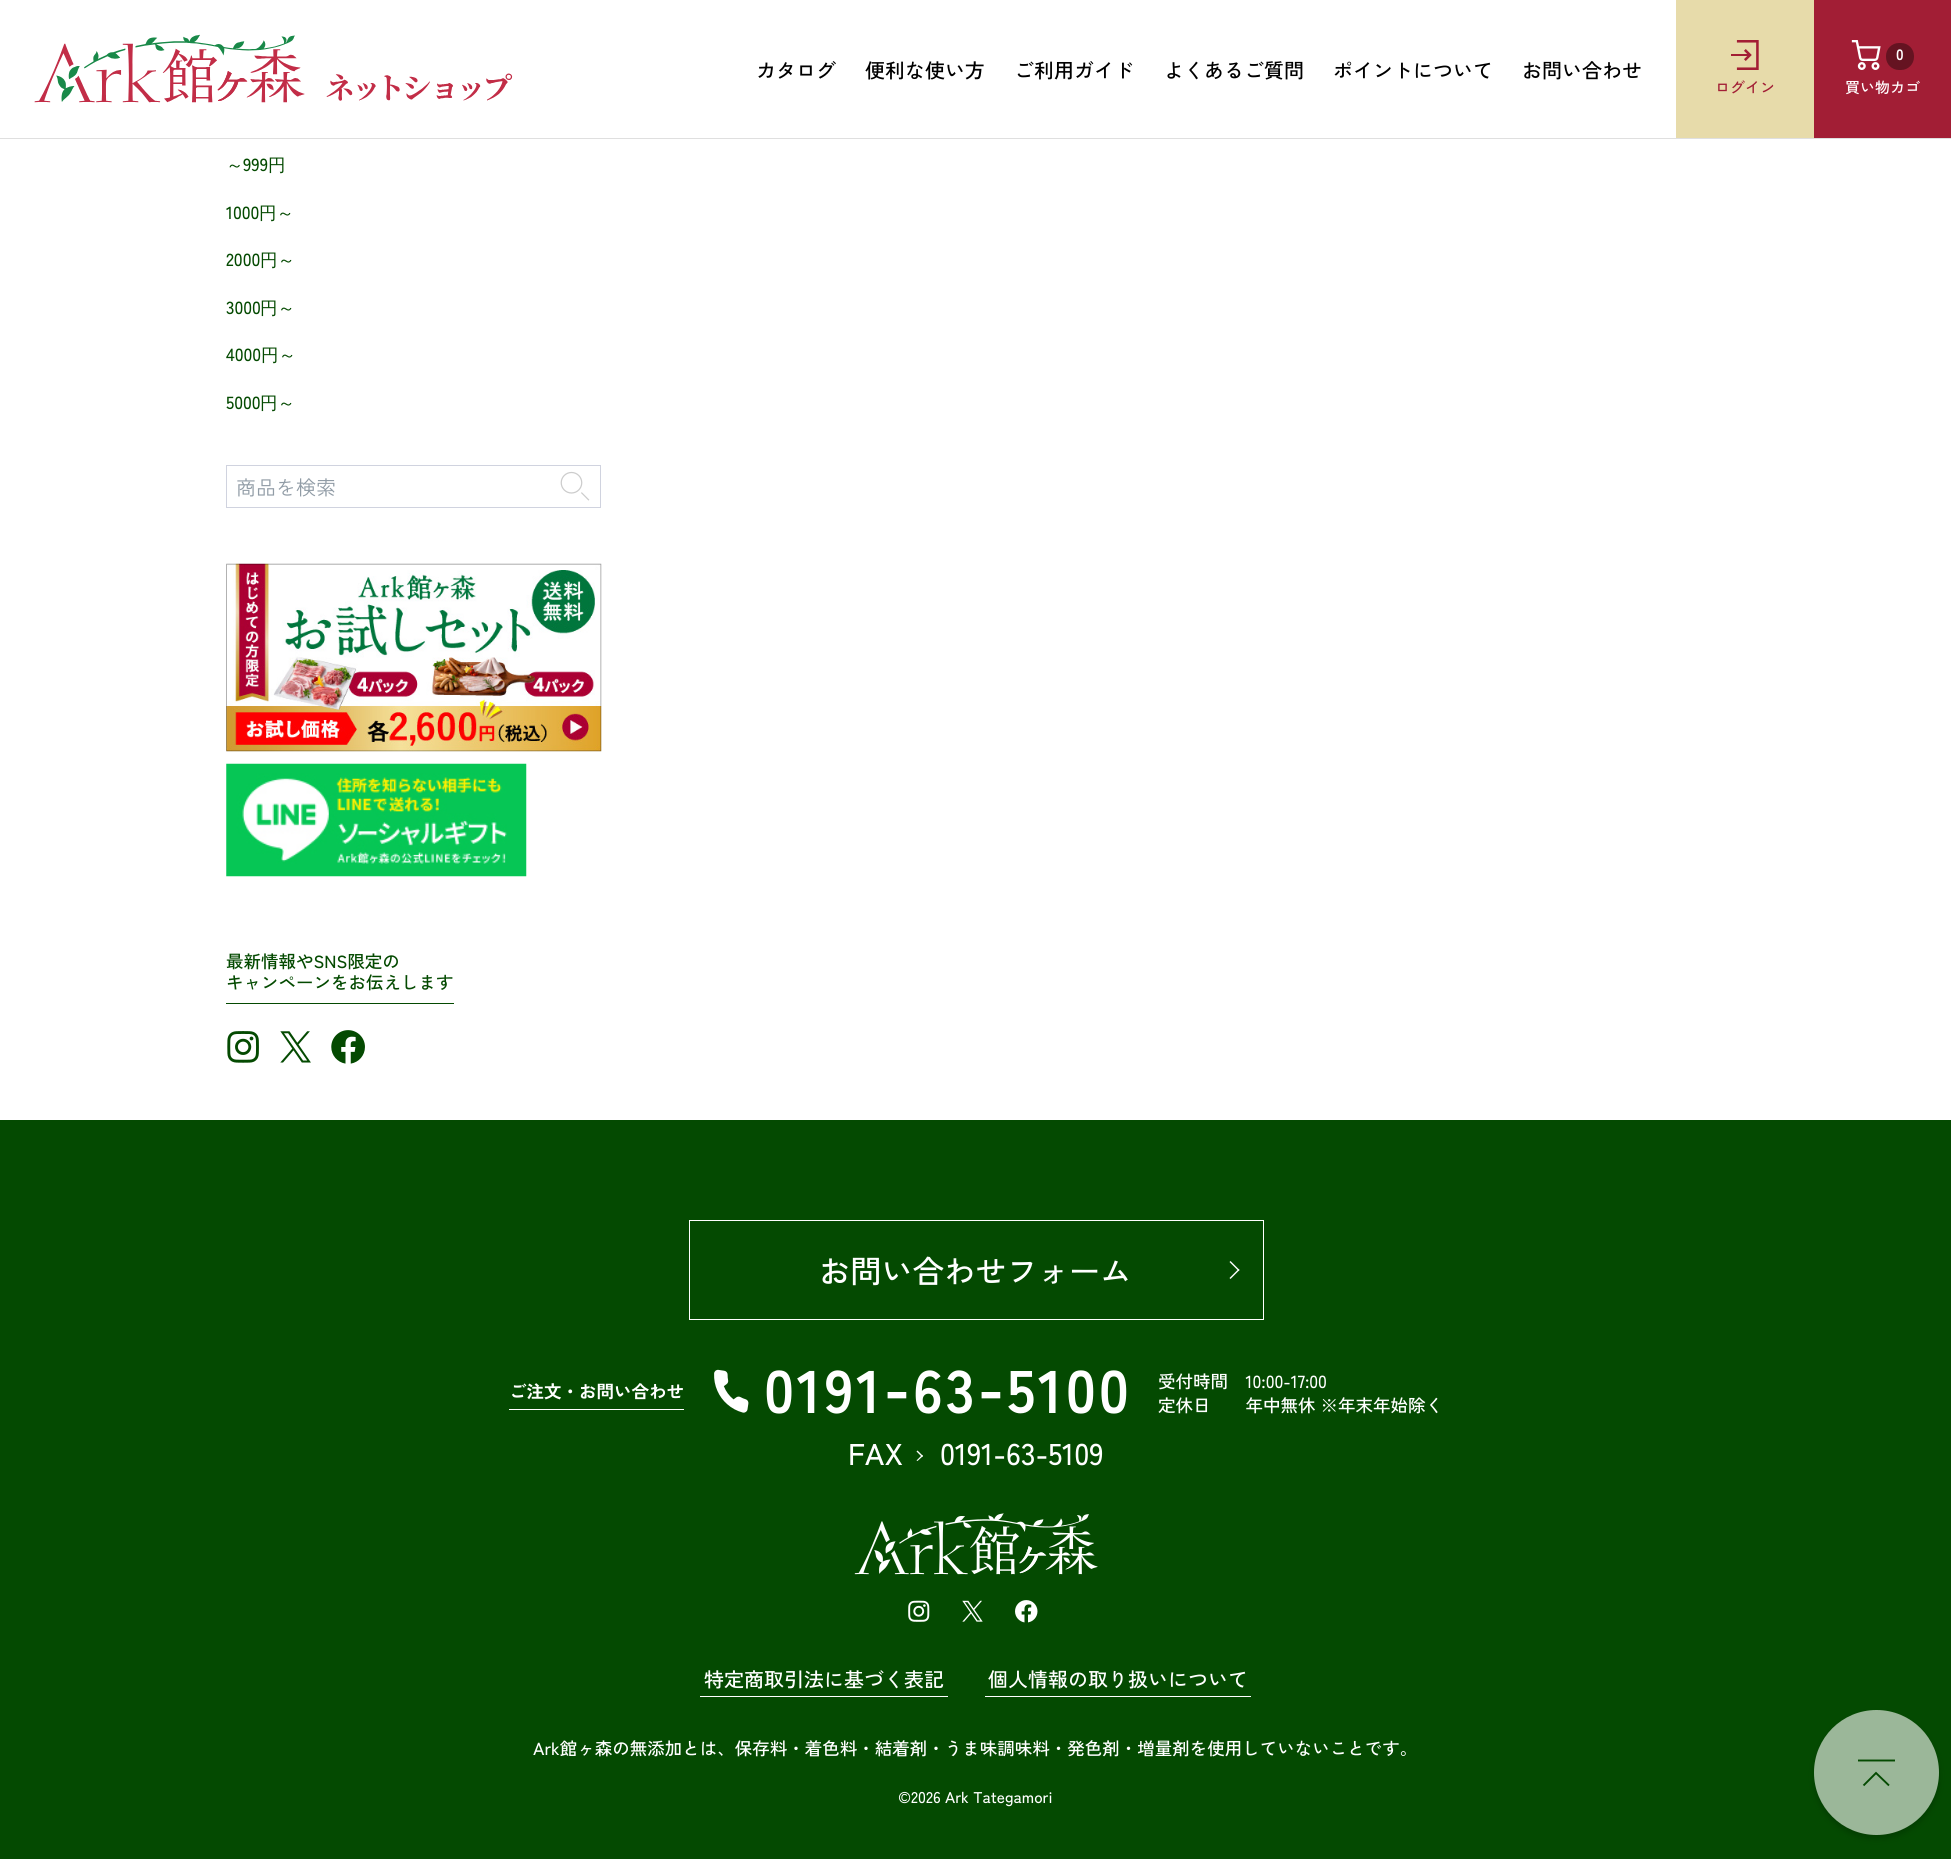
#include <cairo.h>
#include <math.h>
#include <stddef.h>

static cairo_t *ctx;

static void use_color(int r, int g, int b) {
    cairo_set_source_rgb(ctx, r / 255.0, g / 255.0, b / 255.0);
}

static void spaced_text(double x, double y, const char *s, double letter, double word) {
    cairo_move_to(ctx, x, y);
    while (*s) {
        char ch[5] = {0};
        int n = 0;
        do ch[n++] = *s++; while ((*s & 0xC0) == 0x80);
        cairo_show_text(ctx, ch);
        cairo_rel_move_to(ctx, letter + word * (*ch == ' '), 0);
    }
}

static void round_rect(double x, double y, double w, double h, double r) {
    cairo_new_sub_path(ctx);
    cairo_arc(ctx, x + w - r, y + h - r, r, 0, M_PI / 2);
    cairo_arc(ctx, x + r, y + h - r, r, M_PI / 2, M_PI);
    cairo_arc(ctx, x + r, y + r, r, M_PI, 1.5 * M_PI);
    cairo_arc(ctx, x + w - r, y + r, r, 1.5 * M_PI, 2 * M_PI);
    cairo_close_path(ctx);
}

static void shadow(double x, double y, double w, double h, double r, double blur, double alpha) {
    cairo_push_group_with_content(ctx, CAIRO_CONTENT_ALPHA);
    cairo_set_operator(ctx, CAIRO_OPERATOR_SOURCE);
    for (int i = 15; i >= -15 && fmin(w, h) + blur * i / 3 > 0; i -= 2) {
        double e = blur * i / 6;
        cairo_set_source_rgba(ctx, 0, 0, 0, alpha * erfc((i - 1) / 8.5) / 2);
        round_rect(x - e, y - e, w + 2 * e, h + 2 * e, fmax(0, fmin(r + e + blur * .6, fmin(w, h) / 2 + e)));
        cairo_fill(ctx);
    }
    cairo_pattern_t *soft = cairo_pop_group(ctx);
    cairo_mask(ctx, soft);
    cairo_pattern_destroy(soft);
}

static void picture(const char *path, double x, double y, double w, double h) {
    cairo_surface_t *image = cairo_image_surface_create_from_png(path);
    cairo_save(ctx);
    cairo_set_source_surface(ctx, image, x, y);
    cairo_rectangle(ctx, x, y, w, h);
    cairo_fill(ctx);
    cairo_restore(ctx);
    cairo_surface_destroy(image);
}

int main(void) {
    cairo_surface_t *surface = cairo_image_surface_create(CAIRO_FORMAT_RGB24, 1951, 1859);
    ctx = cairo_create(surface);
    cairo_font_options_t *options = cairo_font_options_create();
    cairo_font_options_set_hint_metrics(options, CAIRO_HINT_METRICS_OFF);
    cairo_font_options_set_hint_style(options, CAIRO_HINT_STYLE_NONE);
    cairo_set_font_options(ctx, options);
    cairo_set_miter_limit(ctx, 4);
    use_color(4, 74, 1);
    cairo_paint(ctx);
    use_color(255, 255, 255);
    cairo_rectangle(ctx, 0, 0, 1676, 138);
    cairo_fill(ctx);
    use_color(223, 223, 223);
    cairo_rectangle(ctx, 0, 138, 1951, 1);
    cairo_fill(ctx);
    picture("img1.png", 34, 34, 479, 69);
    cairo_select_font_face(ctx, "Zen Kaku Gothic New Medium", CAIRO_FONT_SLANT_NORMAL, CAIRO_FONT_WEIGHT_NORMAL);
    cairo_set_font_size(ctx, 20);
    use_color(0, 0, 0);
    cairo_move_to(ctx, 756, 78);
    cairo_show_text(ctx, "カタログ");
    cairo_move_to(ctx, 865, 78);
    cairo_show_text(ctx, "便利な使い方");
    cairo_move_to(ctx, 1014, 78);
    cairo_show_text(ctx, "ご利用ガイド");
    cairo_move_to(ctx, 1164, 78);
    cairo_show_text(ctx, "よくあるご質問");
    cairo_move_to(ctx, 1333, 78);
    cairo_show_text(ctx, "ポイントについて");
    cairo_move_to(ctx, 1522, 78);
    cairo_show_text(ctx, "お問い合わせ");
    use_color(231, 219, 170);
    cairo_rectangle(ctx, 1676, 0, 138, 138);
    cairo_fill(ctx);
    picture("img2.png", 1731, 40, 28, 30);
    cairo_set_font_size(ctx, 15);
    use_color(162, 30, 53);
    cairo_move_to(ctx, 1715, 93);
    cairo_show_text(ctx, "ログイン");
    cairo_rectangle(ctx, 1814, 0, 137, 138);
    cairo_fill(ctx);
    picture("img3.png", 1851, 40, 30, 30);
    use_color(101, 19, 33);
    round_rect(1886, 43, 28, 27, 13);
    cairo_fill(ctx);
    cairo_select_font_face(ctx, "Zen Kaku Gothic New", CAIRO_FONT_SLANT_NORMAL, CAIRO_FONT_WEIGHT_BOLD);
    use_color(255, 255, 255);
    spaced_text(1896, 60, "0", 1, 0);
    cairo_select_font_face(ctx, "Zen Kaku Gothic New Medium", CAIRO_FONT_SLANT_NORMAL, CAIRO_FONT_WEIGHT_NORMAL);
    cairo_move_to(ctx, 1845, 93);
    cairo_show_text(ctx, "買い物カゴ");
    cairo_rectangle(ctx, 0, 139, 1951, 981);
    cairo_fill(ctx);
    cairo_select_font_face(ctx, "WenQuanYi Zen Hei Medium", CAIRO_FONT_SLANT_NORMAL, CAIRO_FONT_WEIGHT_NORMAL);
    cairo_set_font_size(ctx, 17.5);
    use_color(4, 74, 1);
    cairo_move_to(ctx, 226, 171);
    cairo_show_text(ctx, "～");
    cairo_select_font_face(ctx, "Zen Kaku Gothic New Medium", CAIRO_FONT_SLANT_NORMAL, CAIRO_FONT_WEIGHT_NORMAL);
    cairo_move_to(ctx, 243, 171);
    cairo_show_text(ctx, "999");
    cairo_select_font_face(ctx, "WenQuanYi Zen Hei Medium", CAIRO_FONT_SLANT_NORMAL, CAIRO_FONT_WEIGHT_NORMAL);
    cairo_move_to(ctx, 268, 171);
    cairo_show_text(ctx, "円");
    cairo_select_font_face(ctx, "Zen Kaku Gothic New Medium", CAIRO_FONT_SLANT_NORMAL, CAIRO_FONT_WEIGHT_NORMAL);
    cairo_move_to(ctx, 226, 219);
    cairo_show_text(ctx, "1000");
    cairo_select_font_face(ctx, "WenQuanYi Zen Hei Medium", CAIRO_FONT_SLANT_NORMAL, CAIRO_FONT_WEIGHT_NORMAL);
    cairo_move_to(ctx, 259, 219);
    cairo_show_text(ctx, "円～");
    cairo_select_font_face(ctx, "Zen Kaku Gothic New Medium", CAIRO_FONT_SLANT_NORMAL, CAIRO_FONT_WEIGHT_NORMAL);
    cairo_move_to(ctx, 226, 266);
    cairo_show_text(ctx, "2000");
    cairo_select_font_face(ctx, "WenQuanYi Zen Hei Medium", CAIRO_FONT_SLANT_NORMAL, CAIRO_FONT_WEIGHT_NORMAL);
    cairo_move_to(ctx, 260, 266);
    cairo_show_text(ctx, "円～");
    cairo_select_font_face(ctx, "Zen Kaku Gothic New Medium", CAIRO_FONT_SLANT_NORMAL, CAIRO_FONT_WEIGHT_NORMAL);
    cairo_move_to(ctx, 226, 314);
    cairo_show_text(ctx, "3000");
    cairo_select_font_face(ctx, "WenQuanYi Zen Hei Medium", CAIRO_FONT_SLANT_NORMAL, CAIRO_FONT_WEIGHT_NORMAL);
    cairo_move_to(ctx, 260, 314);
    cairo_show_text(ctx, "円～");
    cairo_select_font_face(ctx, "Zen Kaku Gothic New Medium", CAIRO_FONT_SLANT_NORMAL, CAIRO_FONT_WEIGHT_NORMAL);
    cairo_move_to(ctx, 226, 361);
    cairo_show_text(ctx, "4000");
    cairo_select_font_face(ctx, "WenQuanYi Zen Hei Medium", CAIRO_FONT_SLANT_NORMAL, CAIRO_FONT_WEIGHT_NORMAL);
    cairo_move_to(ctx, 261, 361);
    cairo_show_text(ctx, "円～");
    cairo_select_font_face(ctx, "Zen Kaku Gothic New Medium", CAIRO_FONT_SLANT_NORMAL, CAIRO_FONT_WEIGHT_NORMAL);
    cairo_move_to(ctx, 226, 409);
    cairo_show_text(ctx, "5000");
    cairo_select_font_face(ctx, "WenQuanYi Zen Hei Medium", CAIRO_FONT_SLANT_NORMAL, CAIRO_FONT_WEIGHT_NORMAL);
    cairo_move_to(ctx, 260, 409);
    cairo_show_text(ctx, "円～");
    cairo_rectangle(ctx, 226.5, 465.5, 374, 42);
    use_color(208, 211, 223);
    cairo_set_line_width(ctx, 1);
    cairo_stroke(ctx);
    cairo_select_font_face(ctx, "Zen Kaku Gothic New", CAIRO_FONT_SLANT_NORMAL, CAIRO_FONT_WEIGHT_NORMAL);
    cairo_set_font_size(ctx, 20);
    use_color(145, 156, 166);
    cairo_move_to(ctx, 236, 495);
    cairo_show_text(ctx, "商品を検索");
    picture("img4.png", 560, 471, 30, 30);
    picture("img5.png", 226, 563, 376, 189);
    picture("img6.png", 226, 763, 301, 114);
    use_color(4, 74, 1);
    cairo_rectangle(ctx, 226, 1003, 228, 1);
    cairo_fill(ctx);
    cairo_select_font_face(ctx, "Zen Kaku Gothic New Medium", CAIRO_FONT_SLANT_NORMAL, CAIRO_FONT_WEIGHT_NORMAL);
    cairo_set_font_size(ctx, 17.5);
    cairo_move_to(ctx, 226, 968);
    cairo_show_text(ctx, "最新情報やSNS限定の");
    cairo_move_to(ctx, 226, 989);
    cairo_show_text(ctx, "キャンペーンをお伝えします");
    picture("img7.png", 227, 1031, 32, 32);
    picture("img8.png", 280, 1031, 31, 32);
    picture("img9.png", 331, 1030, 34, 34);
    cairo_rectangle(ctx, 689.5, 1220.5, 574, 99);
    use_color(255, 255, 255);
    cairo_stroke(ctx);
    cairo_set_font_size(ctx, 31.25);
    cairo_move_to(ctx, 819, 1283);
    cairo_show_text(ctx, "お問い合わせフォーム");
    cairo_new_path(ctx);
    cairo_move_to(ctx, 1230.5, 1261);
    cairo_line_to(ctx, 1239.5, 1270);
    cairo_line_to(ctx, 1238.5, 1271);
    cairo_line_to(ctx, 1229.5, 1262);
    cairo_close_path(ctx);
    cairo_fill(ctx);
    cairo_new_path(ctx);
    cairo_move_to(ctx, 1238.5, 1269);
    cairo_line_to(ctx, 1239.5, 1270);
    cairo_line_to(ctx, 1230.5, 1279);
    cairo_line_to(ctx, 1229.5, 1278);
    cairo_close_path(ctx);
    cairo_fill(ctx);
    cairo_rectangle(ctx, 509, 1409, 175, 1);
    cairo_fill(ctx);
    cairo_select_font_face(ctx, "Zen Kaku Gothic New", CAIRO_FONT_SLANT_NORMAL, CAIRO_FONT_WEIGHT_BOLD);
    cairo_set_font_size(ctx, 17.5);
    cairo_move_to(ctx, 509, 1398);
    cairo_show_text(ctx, "ご注文・お問い合わせ");
    picture("img10.png", 714, 1369, 35, 44);
    cairo_set_font_size(ctx, 60);
    spaced_text(764, 1413, "0191", 3, 0);
    spaced_text(884, 1410, "-", 3, 0);
    spaced_text(913, 1413, "63", 3, 0);
    spaced_text(978, 1410, "-", 3, 0);
    spaced_text(1007, 1413, "5100", 3, 0);
    cairo_select_font_face(ctx, "Zen Kaku Gothic New Medium", CAIRO_FONT_SLANT_NORMAL, CAIRO_FONT_WEIGHT_NORMAL);
    cairo_set_font_size(ctx, 17.5);
    cairo_move_to(ctx, 1158, 1388);
    cairo_show_text(ctx, "受付時間　10:00-17:00");
    cairo_move_to(ctx, 1158, 1412);
    cairo_show_text(ctx, "定休日　　年中無休 ※年末年始除く");
    cairo_set_font_size(ctx, 30);
    cairo_move_to(ctx, 848, 1465);
    cairo_show_text(ctx, "FAX");
    cairo_new_path(ctx);
    cairo_move_to(ctx, 917.5, 1450.5);
    cairo_line_to(ctx, 923, 1456);
    cairo_line_to(ctx, 922, 1457);
    cairo_line_to(ctx, 916.5, 1451.5);
    cairo_close_path(ctx);
    cairo_fill(ctx);
    cairo_new_path(ctx);
    cairo_move_to(ctx, 922, 1455);
    cairo_line_to(ctx, 923, 1456);
    cairo_line_to(ctx, 917.5, 1461);
    cairo_line_to(ctx, 916.5, 1460.5);
    cairo_close_path(ctx);
    cairo_fill(ctx);
    cairo_move_to(ctx, 940, 1465);
    cairo_show_text(ctx, "0191-63-5109");
    picture("img11.png", 854, 1513, 244, 62);
    picture("img12.png", 908, 1600, 22, 22);
    picture("img13.png", 962, 1600, 21, 22);
    picture("img14.png", 1015, 1600, 23, 23);
    cairo_rectangle(ctx, 700, 1696, 248, 1);
    cairo_fill(ctx);
    cairo_set_font_size(ctx, 20);
    cairo_move_to(ctx, 704, 1687);
    cairo_show_text(ctx, "特定商取引法に基づく表記");
    cairo_rectangle(ctx, 985, 1696, 266, 1);
    cairo_fill(ctx);
    cairo_move_to(ctx, 988, 1687);
    cairo_show_text(ctx, "個人情報の取り扱いについて");
    cairo_set_font_size(ctx, 17.5);
    cairo_move_to(ctx, 533, 1755);
    cairo_show_text(ctx, "Ark館ヶ森の無添加とは、保存料・着色料・結着剤・うま味調味料・発色剤・増量剤を使用していないことです。");
    cairo_set_font_size(ctx, 15.6);
    cairo_move_to(ctx, 898, 1803);
    cairo_show_text(ctx, "©2026 Ark Tategamori");
    use_color(2, 30, 0);
    shadow(1814, 1714, 125, 125, 62.5, 3, 0.3);
    use_color(155, 183, 153);
    cairo_arc(ctx, 1876.5, 1772.5, 62.5, 0, 2 * M_PI);
    cairo_fill(ctx);
    cairo_new_path(ctx);
    cairo_move_to(ctx, 1863.5, 1785.5);
    cairo_line_to(ctx, 1876, 1773);
    cairo_line_to(ctx, 1889, 1785.5);
    use_color(4, 74, 1);
    cairo_set_line_width(ctx, 1.9);
    cairo_stroke(ctx);
    cairo_save(ctx);
    cairo_rectangle(ctx, 1858, 1754, 37, 37);
    cairo_clip(ctx);
    cairo_new_path(ctx);
    cairo_move_to(ctx, 1857.5, 1760.5);
    cairo_line_to(ctx, 1895, 1760.5);
    cairo_stroke(ctx);
    cairo_restore(ctx);
    cairo_surface_write_to_png(surface, "result.png");
    cairo_font_options_destroy(options);
    cairo_destroy(ctx);
    cairo_surface_destroy(surface);
    return 0;
}
